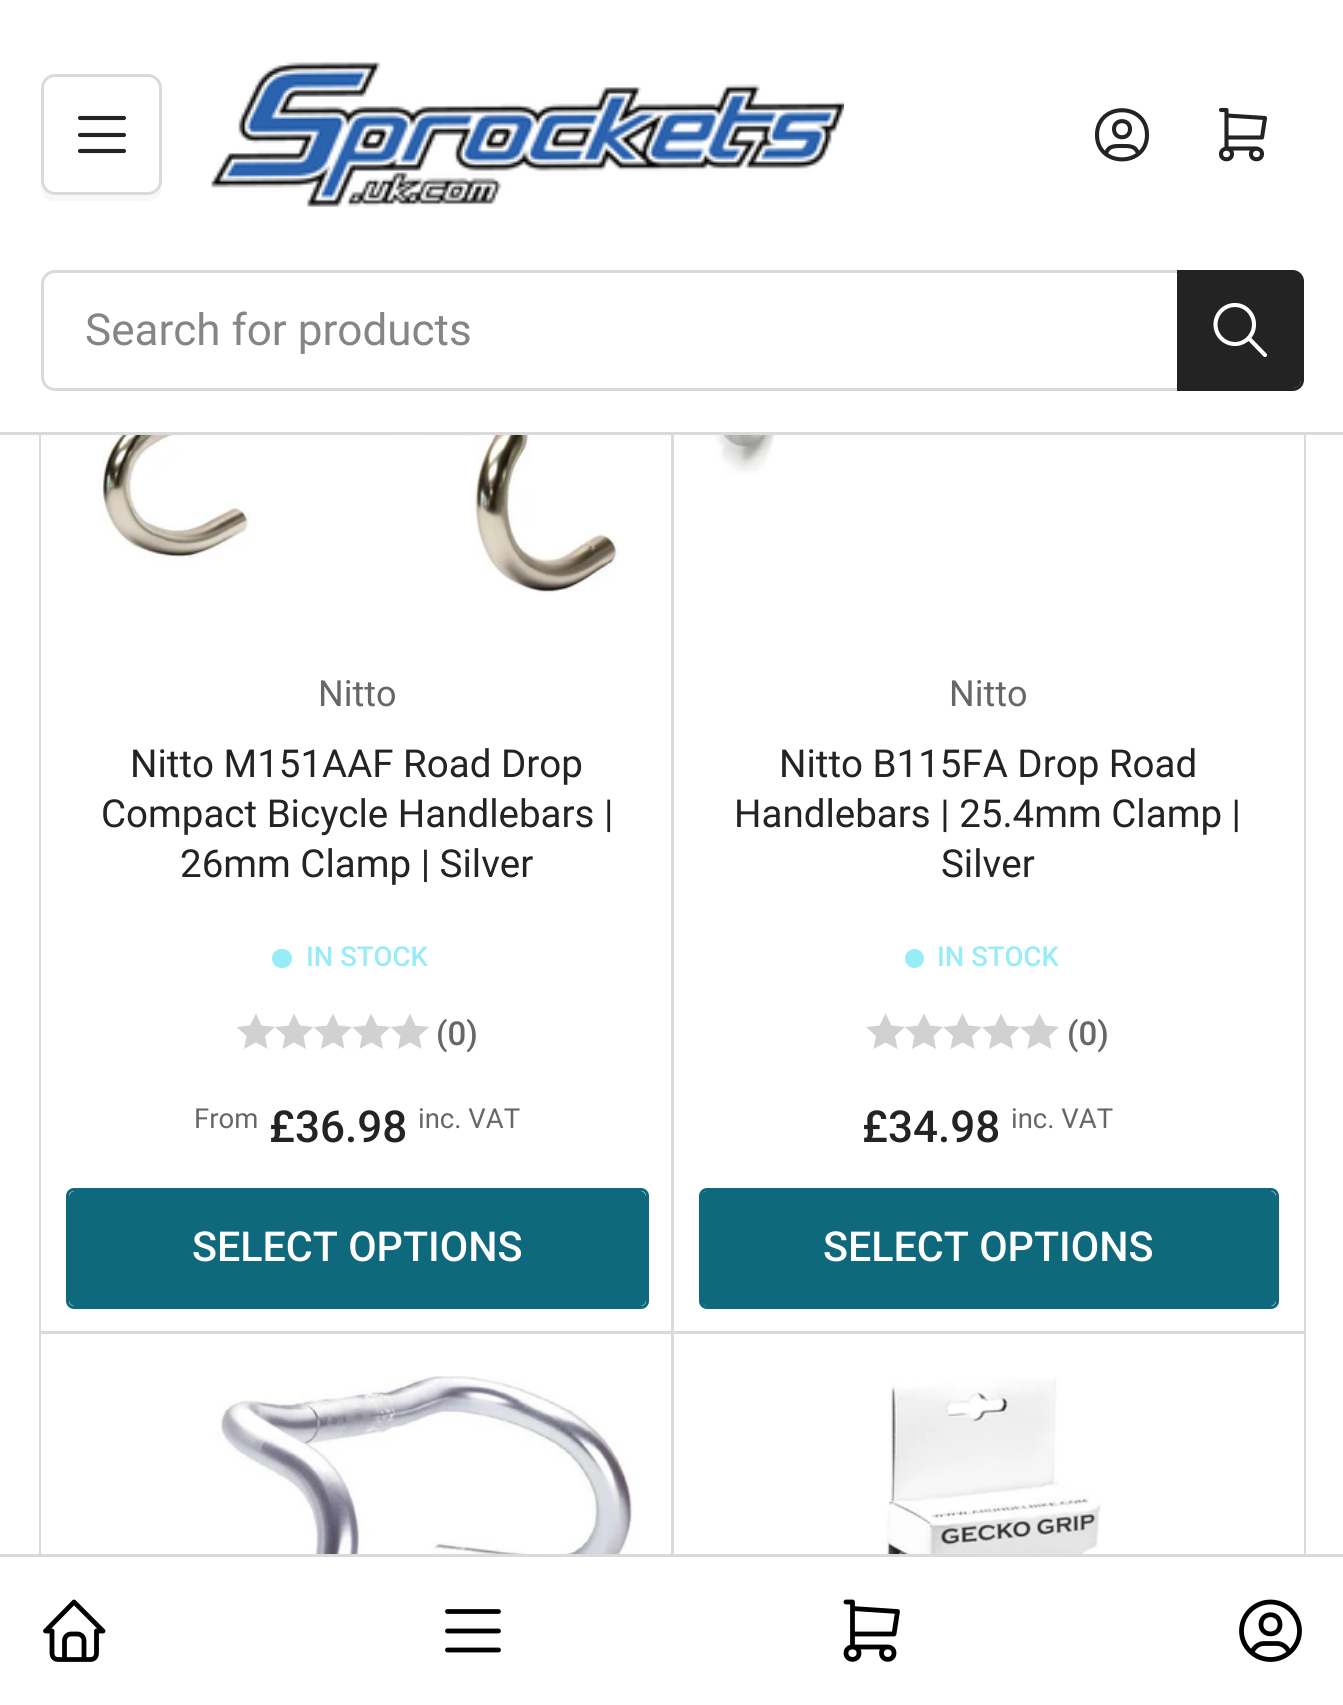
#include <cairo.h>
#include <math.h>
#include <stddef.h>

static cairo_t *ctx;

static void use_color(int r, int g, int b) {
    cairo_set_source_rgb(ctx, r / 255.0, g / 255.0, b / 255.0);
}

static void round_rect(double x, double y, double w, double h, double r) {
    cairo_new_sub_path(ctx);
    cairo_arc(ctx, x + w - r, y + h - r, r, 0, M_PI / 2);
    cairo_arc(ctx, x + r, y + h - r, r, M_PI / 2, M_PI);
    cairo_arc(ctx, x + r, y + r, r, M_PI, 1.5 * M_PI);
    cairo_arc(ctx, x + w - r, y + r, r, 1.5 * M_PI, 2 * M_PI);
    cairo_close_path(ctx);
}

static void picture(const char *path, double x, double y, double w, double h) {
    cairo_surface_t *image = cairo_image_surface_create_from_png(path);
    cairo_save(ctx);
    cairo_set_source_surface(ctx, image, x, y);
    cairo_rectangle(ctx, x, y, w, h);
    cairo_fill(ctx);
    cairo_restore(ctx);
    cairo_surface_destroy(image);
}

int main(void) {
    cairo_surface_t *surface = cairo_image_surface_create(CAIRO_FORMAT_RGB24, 1343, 1705);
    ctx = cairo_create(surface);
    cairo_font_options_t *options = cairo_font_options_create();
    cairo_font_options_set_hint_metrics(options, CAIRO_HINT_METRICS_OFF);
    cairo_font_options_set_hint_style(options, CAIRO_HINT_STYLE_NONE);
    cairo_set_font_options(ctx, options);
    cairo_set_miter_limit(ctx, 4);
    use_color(255, 255, 255);
    cairo_paint(ctx);
    cairo_rectangle(ctx, 40.5, 34.5, 635, 1301);
    use_color(218, 218, 218);
    cairo_set_line_width(ctx, 3);
    cairo_stroke(ctx);
    cairo_rectangle(ctx, 672.5, 34.5, 632, 1301);
    cairo_stroke(ctx);
    cairo_rectangle(ctx, 0, 432, 1343, 3);
    cairo_fill(ctx);
    use_color(255, 255, 255);
    cairo_rectangle(ctx, 39, 33, 1267, 399);
    cairo_fill(ctx);
    use_color(248, 248, 248);
    cairo_new_path(ctx);
    cairo_move_to(ctx, 41, 91);
    cairo_line_to(ctx, 41, 172);
    cairo_curve_to(ctx, 41, 182, 38, 198, 52, 201);
    cairo_line_to(ctx, 132, 201);
    cairo_curve_to(ctx, 148, 201, 162, 204, 162, 184);
    cairo_curve_to(ctx, 161, 190, 155, 195, 148, 195);
    cairo_line_to(ctx, 55, 195);
    cairo_curve_to(ctx, 47, 195, 41, 189, 41, 182);
    cairo_close_path(ctx);
    cairo_fill(ctx);
    round_rect(42.5, 75.5, 118, 118, 12.5);
    use_color(218, 218, 218);
    cairo_stroke(ctx);
    cairo_new_path(ctx);
    cairo_move_to(ctx, 80, 118);
    cairo_line_to(ctx, 124, 118);
    cairo_move_to(ctx, 80, 135);
    cairo_line_to(ctx, 124, 135);
    cairo_move_to(ctx, 80, 151);
    cairo_line_to(ctx, 124, 151);
    use_color(35, 35, 35);
    cairo_set_line_width(ctx, 4.1);
    cairo_set_line_cap(ctx, CAIRO_LINE_CAP_ROUND);
    cairo_set_line_join(ctx, CAIRO_LINE_JOIN_ROUND);
    cairo_stroke(ctx);
    picture("img1.png", 211, 62, 633, 145);
    cairo_new_path(ctx);
    cairo_move_to(ctx, 1097, 135);
    cairo_curve_to(ctx, 1097, 167.5, 1147, 167.5, 1147, 135);
    cairo_curve_to(ctx, 1147, 102, 1097, 102, 1097, 135);
    cairo_move_to(ctx, 1114, 129);
    cairo_curve_to(ctx, 1114, 140, 1130, 140, 1130, 129);
    cairo_curve_to(ctx, 1130, 118.5, 1114, 118.5, 1114, 129);
    cairo_move_to(ctx, 1106, 153.5);
    cairo_curve_to(ctx, 1108.5, 145.5, 1115, 146, 1122, 146);
    cairo_curve_to(ctx, 1129, 146, 1135.5, 145.5, 1138, 153.5);
    cairo_stroke(ctx);
    cairo_new_path(ctx);
    cairo_move_to(ctx, 1221, 154);
    cairo_curve_to(ctx, 1221, 161, 1232, 161, 1232, 154);
    cairo_curve_to(ctx, 1232, 147, 1221, 147, 1221, 154);
    cairo_move_to(ctx, 1251, 154);
    cairo_curve_to(ctx, 1251, 161, 1262, 161, 1262, 154);
    cairo_curve_to(ctx, 1262, 147, 1251, 147, 1251, 154);
    cairo_move_to(ctx, 1257, 148.5);
    cairo_line_to(ctx, 1226.5, 148.5);
    cairo_line_to(ctx, 1226.5, 110);
    cairo_line_to(ctx, 1221, 110);
    cairo_move_to(ctx, 1226.5, 115.5);
    cairo_line_to(ctx, 1265, 118);
    cairo_line_to(ctx, 1262, 137.5);
    cairo_line_to(ctx, 1226.5, 137.5);
    cairo_stroke(ctx);
    round_rect(42.5, 271.5, 1260, 118, 12.5);
    use_color(218, 218, 218);
    cairo_set_line_width(ctx, 3);
    cairo_set_line_cap(ctx, CAIRO_LINE_CAP_BUTT);
    cairo_set_line_join(ctx, CAIRO_LINE_JOIN_MITER);
    cairo_stroke(ctx);
    cairo_select_font_face(ctx, "Roboto", CAIRO_FONT_SLANT_NORMAL, CAIRO_FONT_WEIGHT_NORMAL);
    cairo_set_font_size(ctx, 44);
    use_color(133, 133, 133);
    cairo_move_to(ctx, 85, 345);
    cairo_show_text(ctx, "Search for products");
    cairo_new_path(ctx);
    cairo_move_to(ctx, 1178.5, 271.5);
    cairo_line_to(ctx, 1293, 271.5);
    cairo_curve_to(ctx, 1298, 271.5, 1302.5, 276, 1302.5, 281);
    cairo_line_to(ctx, 1302.5, 380);
    cairo_curve_to(ctx, 1302.5, 385, 1298, 389.5, 1293, 389.5);
    cairo_line_to(ctx, 1178.5, 389.5);
    cairo_close_path(ctx);
    use_color(35, 35, 35);
    cairo_stroke(ctx);
    cairo_new_path(ctx);
    cairo_move_to(ctx, 1180, 272);
    cairo_line_to(ctx, 1293, 272);
    cairo_curve_to(ctx, 1297.5, 272, 1301, 275.5, 1301, 280);
    cairo_line_to(ctx, 1301, 380);
    cairo_curve_to(ctx, 1301, 384.5, 1297.5, 388, 1293, 388);
    cairo_line_to(ctx, 1180, 388);
    cairo_close_path(ctx);
    cairo_fill(ctx);
    cairo_new_path(ctx);
    cairo_move_to(ctx, 1215.5, 324.5);
    cairo_curve_to(ctx, 1215.5, 335, 1224, 344, 1235, 344);
    cairo_curve_to(ctx, 1245.5, 344, 1254, 335, 1254, 324.5);
    cairo_curve_to(ctx, 1254, 314, 1245.5, 305, 1235, 305);
    cairo_curve_to(ctx, 1224, 305, 1215.5, 314, 1215.5, 324.5);
    cairo_move_to(ctx, 1265, 355);
    cairo_line_to(ctx, 1248.5, 338);
    use_color(255, 255, 255);
    cairo_set_line_width(ctx, 4.1);
    cairo_set_line_cap(ctx, CAIRO_LINE_CAP_ROUND);
    cairo_set_line_join(ctx, CAIRO_LINE_JOIN_ROUND);
    cairo_stroke(ctx);
    cairo_rectangle(ctx, 41, 435, 1, 896);
    cairo_fill(ctx);
    picture("img2.png", 100, 435, 519, 159);
    cairo_set_font_size(ctx, 36);
    use_color(103, 103, 103);
    cairo_move_to(ctx, 318, 706);
    cairo_show_text(ctx, "Nitto");
    cairo_set_font_size(ctx, 38.5);
    use_color(35, 35, 35);
    cairo_move_to(ctx, 130, 777);
    cairo_show_text(ctx, "Nitto M151AAF Road Drop");
    cairo_move_to(ctx, 101, 827);
    cairo_show_text(ctx, "Compact Bicycle Handlebars |");
    cairo_move_to(ctx, 180, 877);
    cairo_show_text(ctx, "26mm Clamp | Silver");
    use_color(151, 236, 246);
    round_rect(272, 949, 20, 19, 9.5);
    cairo_fill(ctx);
    cairo_select_font_face(ctx, "Roboto Medium", CAIRO_FONT_SLANT_NORMAL, CAIRO_FONT_WEIGHT_NORMAL);
    cairo_set_font_size(ctx, 27.5);
    cairo_move_to(ctx, 306, 966);
    cairo_show_text(ctx, "IN STOCK");
    use_color(209, 209, 209);
    cairo_new_path(ctx);
    cairo_move_to(ctx, 275, 1027);
    cairo_line_to(ctx, 261.5, 1025.5);
    cairo_line_to(ctx, 256, 1013.5);
    cairo_line_to(ctx, 250, 1025.5);
    cairo_line_to(ctx, 236.5, 1027);
    cairo_line_to(ctx, 246.5, 1036);
    cairo_line_to(ctx, 244, 1049);
    cairo_line_to(ctx, 256, 1042.5);
    cairo_line_to(ctx, 267.5, 1049);
    cairo_line_to(ctx, 265, 1036);
    cairo_close_path(ctx);
    cairo_fill(ctx);
    cairo_new_path(ctx);
    cairo_move_to(ctx, 313.5, 1027);
    cairo_line_to(ctx, 300, 1025.5);
    cairo_line_to(ctx, 294, 1013.5);
    cairo_line_to(ctx, 288.5, 1025.5);
    cairo_line_to(ctx, 275, 1027);
    cairo_line_to(ctx, 285, 1036);
    cairo_line_to(ctx, 282.5, 1049);
    cairo_line_to(ctx, 294, 1042.5);
    cairo_line_to(ctx, 306, 1049);
    cairo_line_to(ctx, 303.5, 1036);
    cairo_close_path(ctx);
    cairo_fill(ctx);
    cairo_new_path(ctx);
    cairo_move_to(ctx, 352, 1027);
    cairo_line_to(ctx, 338.5, 1025.5);
    cairo_line_to(ctx, 333, 1013.5);
    cairo_line_to(ctx, 327, 1025.5);
    cairo_line_to(ctx, 313.5, 1027);
    cairo_line_to(ctx, 323.5, 1036);
    cairo_line_to(ctx, 321, 1049);
    cairo_line_to(ctx, 333, 1042.5);
    cairo_line_to(ctx, 344.5, 1049);
    cairo_line_to(ctx, 342, 1036);
    cairo_close_path(ctx);
    cairo_fill(ctx);
    cairo_new_path(ctx);
    cairo_move_to(ctx, 390.5, 1027);
    cairo_line_to(ctx, 377, 1025.5);
    cairo_line_to(ctx, 371, 1013.5);
    cairo_line_to(ctx, 365.5, 1025.5);
    cairo_line_to(ctx, 352, 1027);
    cairo_line_to(ctx, 362, 1036);
    cairo_line_to(ctx, 359.5, 1049);
    cairo_line_to(ctx, 371, 1042.5);
    cairo_line_to(ctx, 383, 1049);
    cairo_line_to(ctx, 380.5, 1036);
    cairo_close_path(ctx);
    cairo_fill(ctx);
    cairo_new_path(ctx);
    cairo_move_to(ctx, 429, 1027);
    cairo_line_to(ctx, 415.5, 1025.5);
    cairo_line_to(ctx, 410, 1013.5);
    cairo_line_to(ctx, 404, 1025.5);
    cairo_line_to(ctx, 390.5, 1027);
    cairo_line_to(ctx, 400.5, 1036);
    cairo_line_to(ctx, 398, 1049);
    cairo_line_to(ctx, 410, 1042.5);
    cairo_line_to(ctx, 421.5, 1049);
    cairo_line_to(ctx, 419, 1036);
    cairo_close_path(ctx);
    cairo_fill(ctx);
    cairo_set_font_size(ctx, 33);
    use_color(103, 103, 103);
    cairo_move_to(ctx, 436, 1045);
    cairo_show_text(ctx, "(0)");
    cairo_select_font_face(ctx, "Roboto", CAIRO_FONT_SLANT_NORMAL, CAIRO_FONT_WEIGHT_NORMAL);
    cairo_set_font_size(ctx, 27.5);
    cairo_move_to(ctx, 194, 1128);
    cairo_show_text(ctx, "From");
    cairo_select_font_face(ctx, "Roboto Medium", CAIRO_FONT_SLANT_NORMAL, CAIRO_FONT_WEIGHT_NORMAL);
    cairo_set_font_size(ctx, 44);
    use_color(35, 35, 35);
    cairo_move_to(ctx, 269, 1142);
    cairo_show_text(ctx, "£36.98");
    cairo_select_font_face(ctx, "Roboto", CAIRO_FONT_SLANT_NORMAL, CAIRO_FONT_WEIGHT_NORMAL);
    cairo_set_font_size(ctx, 27.5);
    use_color(103, 103, 103);
    cairo_move_to(ctx, 418, 1128);
    cairo_show_text(ctx, "inc. VAT");
    round_rect(67.5, 1189.5, 580, 118, 6.5);
    use_color(15, 105, 124);
    cairo_set_line_width(ctx, 3);
    cairo_set_line_cap(ctx, CAIRO_LINE_CAP_BUTT);
    cairo_set_line_join(ctx, CAIRO_LINE_JOIN_MITER);
    cairo_stroke(ctx);
    round_rect(69, 1191, 577, 115, 6);
    cairo_fill(ctx);
    cairo_select_font_face(ctx, "Roboto Medium", CAIRO_FONT_SLANT_NORMAL, CAIRO_FONT_WEIGHT_NORMAL);
    cairo_set_font_size(ctx, 41.25);
    use_color(255, 255, 255);
    cairo_move_to(ctx, 192, 1261);
    cairo_show_text(ctx, "SELECT OPTIONS");
    cairo_rectangle(ctx, 674, 435, 630, 896);
    cairo_fill(ctx);
    picture("img3.png", 707, 435, 569, 40);
    cairo_select_font_face(ctx, "Roboto", CAIRO_FONT_SLANT_NORMAL, CAIRO_FONT_WEIGHT_NORMAL);
    cairo_set_font_size(ctx, 36);
    use_color(103, 103, 103);
    cairo_move_to(ctx, 949, 706);
    cairo_show_text(ctx, "Nitto");
    cairo_set_font_size(ctx, 38.5);
    use_color(35, 35, 35);
    cairo_move_to(ctx, 779, 777);
    cairo_show_text(ctx, "Nitto B115FA Drop Road");
    cairo_move_to(ctx, 734, 827);
    cairo_show_text(ctx, "Handlebars | 25.4mm Clamp |");
    cairo_move_to(ctx, 941, 877);
    cairo_show_text(ctx, "Silver");
    use_color(151, 236, 246);
    cairo_new_path(ctx);
    cairo_arc(ctx, 914.5, 958.5, 9.5, 0, 2 * M_PI);
    cairo_fill(ctx);
    cairo_select_font_face(ctx, "Roboto Medium", CAIRO_FONT_SLANT_NORMAL, CAIRO_FONT_WEIGHT_NORMAL);
    cairo_set_font_size(ctx, 27.5);
    cairo_move_to(ctx, 937, 966);
    cairo_show_text(ctx, "IN STOCK");
    use_color(209, 209, 209);
    cairo_new_path(ctx);
    cairo_move_to(ctx, 905, 1027);
    cairo_line_to(ctx, 891.5, 1025.5);
    cairo_line_to(ctx, 885.5, 1013.5);
    cairo_line_to(ctx, 879.5, 1025.5);
    cairo_line_to(ctx, 866, 1027);
    cairo_line_to(ctx, 876, 1036);
    cairo_line_to(ctx, 873.5, 1049);
    cairo_line_to(ctx, 885.5, 1042.5);
    cairo_line_to(ctx, 897.5, 1049);
    cairo_line_to(ctx, 895, 1036);
    cairo_close_path(ctx);
    cairo_fill(ctx);
    cairo_new_path(ctx);
    cairo_move_to(ctx, 943, 1027);
    cairo_line_to(ctx, 930, 1025.5);
    cairo_line_to(ctx, 924, 1013.5);
    cairo_line_to(ctx, 918, 1025.5);
    cairo_line_to(ctx, 905, 1027);
    cairo_line_to(ctx, 914.5, 1036);
    cairo_line_to(ctx, 912, 1049);
    cairo_line_to(ctx, 924, 1042.5);
    cairo_line_to(ctx, 936, 1049);
    cairo_line_to(ctx, 933.5, 1036);
    cairo_close_path(ctx);
    cairo_fill(ctx);
    cairo_new_path(ctx);
    cairo_move_to(ctx, 982, 1027);
    cairo_line_to(ctx, 968.5, 1025.5);
    cairo_line_to(ctx, 962.5, 1013.5);
    cairo_line_to(ctx, 956.5, 1025.5);
    cairo_line_to(ctx, 943, 1027);
    cairo_line_to(ctx, 953, 1036);
    cairo_line_to(ctx, 950.5, 1049);
    cairo_line_to(ctx, 962.5, 1042.5);
    cairo_line_to(ctx, 974.5, 1049);
    cairo_line_to(ctx, 972, 1036);
    cairo_close_path(ctx);
    cairo_fill(ctx);
    cairo_new_path(ctx);
    cairo_move_to(ctx, 1020, 1027);
    cairo_line_to(ctx, 1007, 1025.5);
    cairo_line_to(ctx, 1001, 1013.5);
    cairo_line_to(ctx, 995, 1025.5);
    cairo_line_to(ctx, 982, 1027);
    cairo_line_to(ctx, 991.5, 1036);
    cairo_line_to(ctx, 989, 1049);
    cairo_line_to(ctx, 1001, 1042.5);
    cairo_line_to(ctx, 1013, 1049);
    cairo_line_to(ctx, 1010.5, 1036);
    cairo_close_path(ctx);
    cairo_fill(ctx);
    cairo_new_path(ctx);
    cairo_move_to(ctx, 1059, 1027);
    cairo_line_to(ctx, 1045.5, 1025.5);
    cairo_line_to(ctx, 1039.5, 1013.5);
    cairo_line_to(ctx, 1033.5, 1025.5);
    cairo_line_to(ctx, 1020, 1027);
    cairo_line_to(ctx, 1030, 1036);
    cairo_line_to(ctx, 1027.5, 1049);
    cairo_line_to(ctx, 1039.5, 1042.5);
    cairo_line_to(ctx, 1051.5, 1049);
    cairo_line_to(ctx, 1049, 1036);
    cairo_close_path(ctx);
    cairo_fill(ctx);
    cairo_set_font_size(ctx, 33);
    use_color(103, 103, 103);
    cairo_move_to(ctx, 1067, 1045);
    cairo_show_text(ctx, "(0)");
    cairo_set_font_size(ctx, 44);
    use_color(35, 35, 35);
    cairo_move_to(ctx, 862, 1142);
    cairo_show_text(ctx, "£34.98");
    cairo_select_font_face(ctx, "Roboto", CAIRO_FONT_SLANT_NORMAL, CAIRO_FONT_WEIGHT_NORMAL);
    cairo_set_font_size(ctx, 27.5);
    use_color(103, 103, 103);
    cairo_move_to(ctx, 1011, 1128);
    cairo_show_text(ctx, "inc. VAT");
    round_rect(700.5, 1189.5, 577, 118, 6.5);
    use_color(15, 105, 124);
    cairo_stroke(ctx);
    round_rect(701, 1191, 575, 115, 6);
    cairo_fill(ctx);
    cairo_select_font_face(ctx, "Roboto Medium", CAIRO_FONT_SLANT_NORMAL, CAIRO_FONT_WEIGHT_NORMAL);
    cairo_set_font_size(ctx, 41.25);
    use_color(255, 255, 255);
    cairo_move_to(ctx, 823, 1261);
    cairo_show_text(ctx, "SELECT OPTIONS");
    cairo_rectangle(ctx, 40.5, 1332.5, 635, 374);
    use_color(218, 218, 218);
    cairo_stroke(ctx);
    use_color(255, 255, 255);
    cairo_rectangle(ctx, 41, 1334, 630, 220);
    cairo_fill(ctx);
    picture("img4.png", 80, 1376, 555, 178);
    cairo_rectangle(ctx, 672.5, 1332.5, 632, 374);
    use_color(218, 218, 218);
    cairo_stroke(ctx);
    use_color(255, 255, 255);
    cairo_rectangle(ctx, 674, 1334, 630, 220);
    cairo_fill(ctx);
    picture("img5.png", 882, 1377, 219, 177);
    cairo_rectangle(ctx, 39, 1557, 1267, 148);
    cairo_fill(ctx);
    use_color(218, 218, 218);
    cairo_rectangle(ctx, 0, 1554, 1343, 3);
    cairo_fill(ctx);
    cairo_new_path(ctx);
    cairo_move_to(ctx, 52, 1631);
    cairo_line_to(ctx, 45.5, 1631);
    cairo_line_to(ctx, 74, 1602);
    cairo_line_to(ctx, 103, 1631);
    cairo_line_to(ctx, 96.5, 1631);
    cairo_move_to(ctx, 52, 1631);
    cairo_line_to(ctx, 52, 1653);
    cairo_curve_to(ctx, 52, 1657, 54.5, 1659.5, 58, 1659.5);
    cairo_line_to(ctx, 90.5, 1659.5);
    cairo_curve_to(ctx, 94, 1659.5, 96.5, 1657, 96.5, 1653);
    cairo_line_to(ctx, 96.5, 1631);
    cairo_move_to(ctx, 64.5, 1659.5);
    cairo_line_to(ctx, 64.5, 1640.5);
    cairo_curve_to(ctx, 64.5, 1637, 67.5, 1634, 71, 1634);
    cairo_line_to(ctx, 77.5, 1634);
    cairo_curve_to(ctx, 81, 1634, 84, 1637, 84, 1640.5);
    cairo_line_to(ctx, 84, 1659.5);
    use_color(0, 0, 0);
    cairo_set_line_width(ctx, 4.8);
    cairo_set_line_cap(ctx, CAIRO_LINE_CAP_ROUND);
    cairo_set_line_join(ctx, CAIRO_LINE_JOIN_ROUND);
    cairo_stroke(ctx);
    cairo_new_path(ctx);
    cairo_move_to(ctx, 447.5, 1611.5);
    cairo_line_to(ctx, 498.5, 1611.5);
    cairo_move_to(ctx, 447.5, 1631);
    cairo_line_to(ctx, 498.5, 1631);
    cairo_move_to(ctx, 447.5, 1650);
    cairo_line_to(ctx, 498.5, 1650);
    cairo_stroke(ctx);
    cairo_new_path(ctx);
    cairo_move_to(ctx, 846, 1653);
    cairo_curve_to(ctx, 846, 1661.5, 859, 1661.5, 859, 1653);
    cairo_curve_to(ctx, 859, 1645, 846, 1645, 846, 1653);
    cairo_move_to(ctx, 881.5, 1653);
    cairo_curve_to(ctx, 881.5, 1661.5, 894, 1661.5, 894, 1653);
    cairo_curve_to(ctx, 894, 1645, 881.5, 1645, 881.5, 1653);
    cairo_move_to(ctx, 888, 1647);
    cairo_line_to(ctx, 852.5, 1647);
    cairo_line_to(ctx, 852.5, 1602);
    cairo_line_to(ctx, 846, 1602);
    cairo_move_to(ctx, 852.5, 1608.5);
    cairo_line_to(ctx, 897.5, 1611.5);
    cairo_line_to(ctx, 894, 1634);
    cairo_line_to(ctx, 852.5, 1634);
    cairo_stroke(ctx);
    cairo_new_path(ctx);
    cairo_move_to(ctx, 1241.5, 1631);
    cairo_curve_to(ctx, 1241.5, 1646.5, 1254.5, 1659.5, 1270.5, 1659.5);
    cairo_curve_to(ctx, 1286.5, 1659.5, 1299.5, 1646.5, 1299.5, 1631);
    cairo_curve_to(ctx, 1299.5, 1615, 1286.5, 1602, 1270.5, 1602);
    cairo_curve_to(ctx, 1254.5, 1602, 1241.5, 1615, 1241.5, 1631);
    cairo_move_to(ctx, 1261, 1624.5);
    cairo_curve_to(ctx, 1261, 1637, 1280, 1637, 1280, 1624.5);
    cairo_curve_to(ctx, 1280, 1611.5, 1261, 1611.5, 1261, 1624.5);
    cairo_move_to(ctx, 1252, 1652.5);
    cairo_curve_to(ctx, 1253.5, 1647.5, 1258.5, 1643.5, 1264, 1643.5);
    cairo_line_to(ctx, 1277, 1643.5);
    cairo_curve_to(ctx, 1282.5, 1643.5, 1287.5, 1647.5, 1289, 1652.5);
    cairo_stroke(ctx);
    cairo_surface_write_to_png(surface, "result.png");
    cairo_font_options_destroy(options);
    cairo_destroy(ctx);
    cairo_surface_destroy(surface);
    return 0;
}
